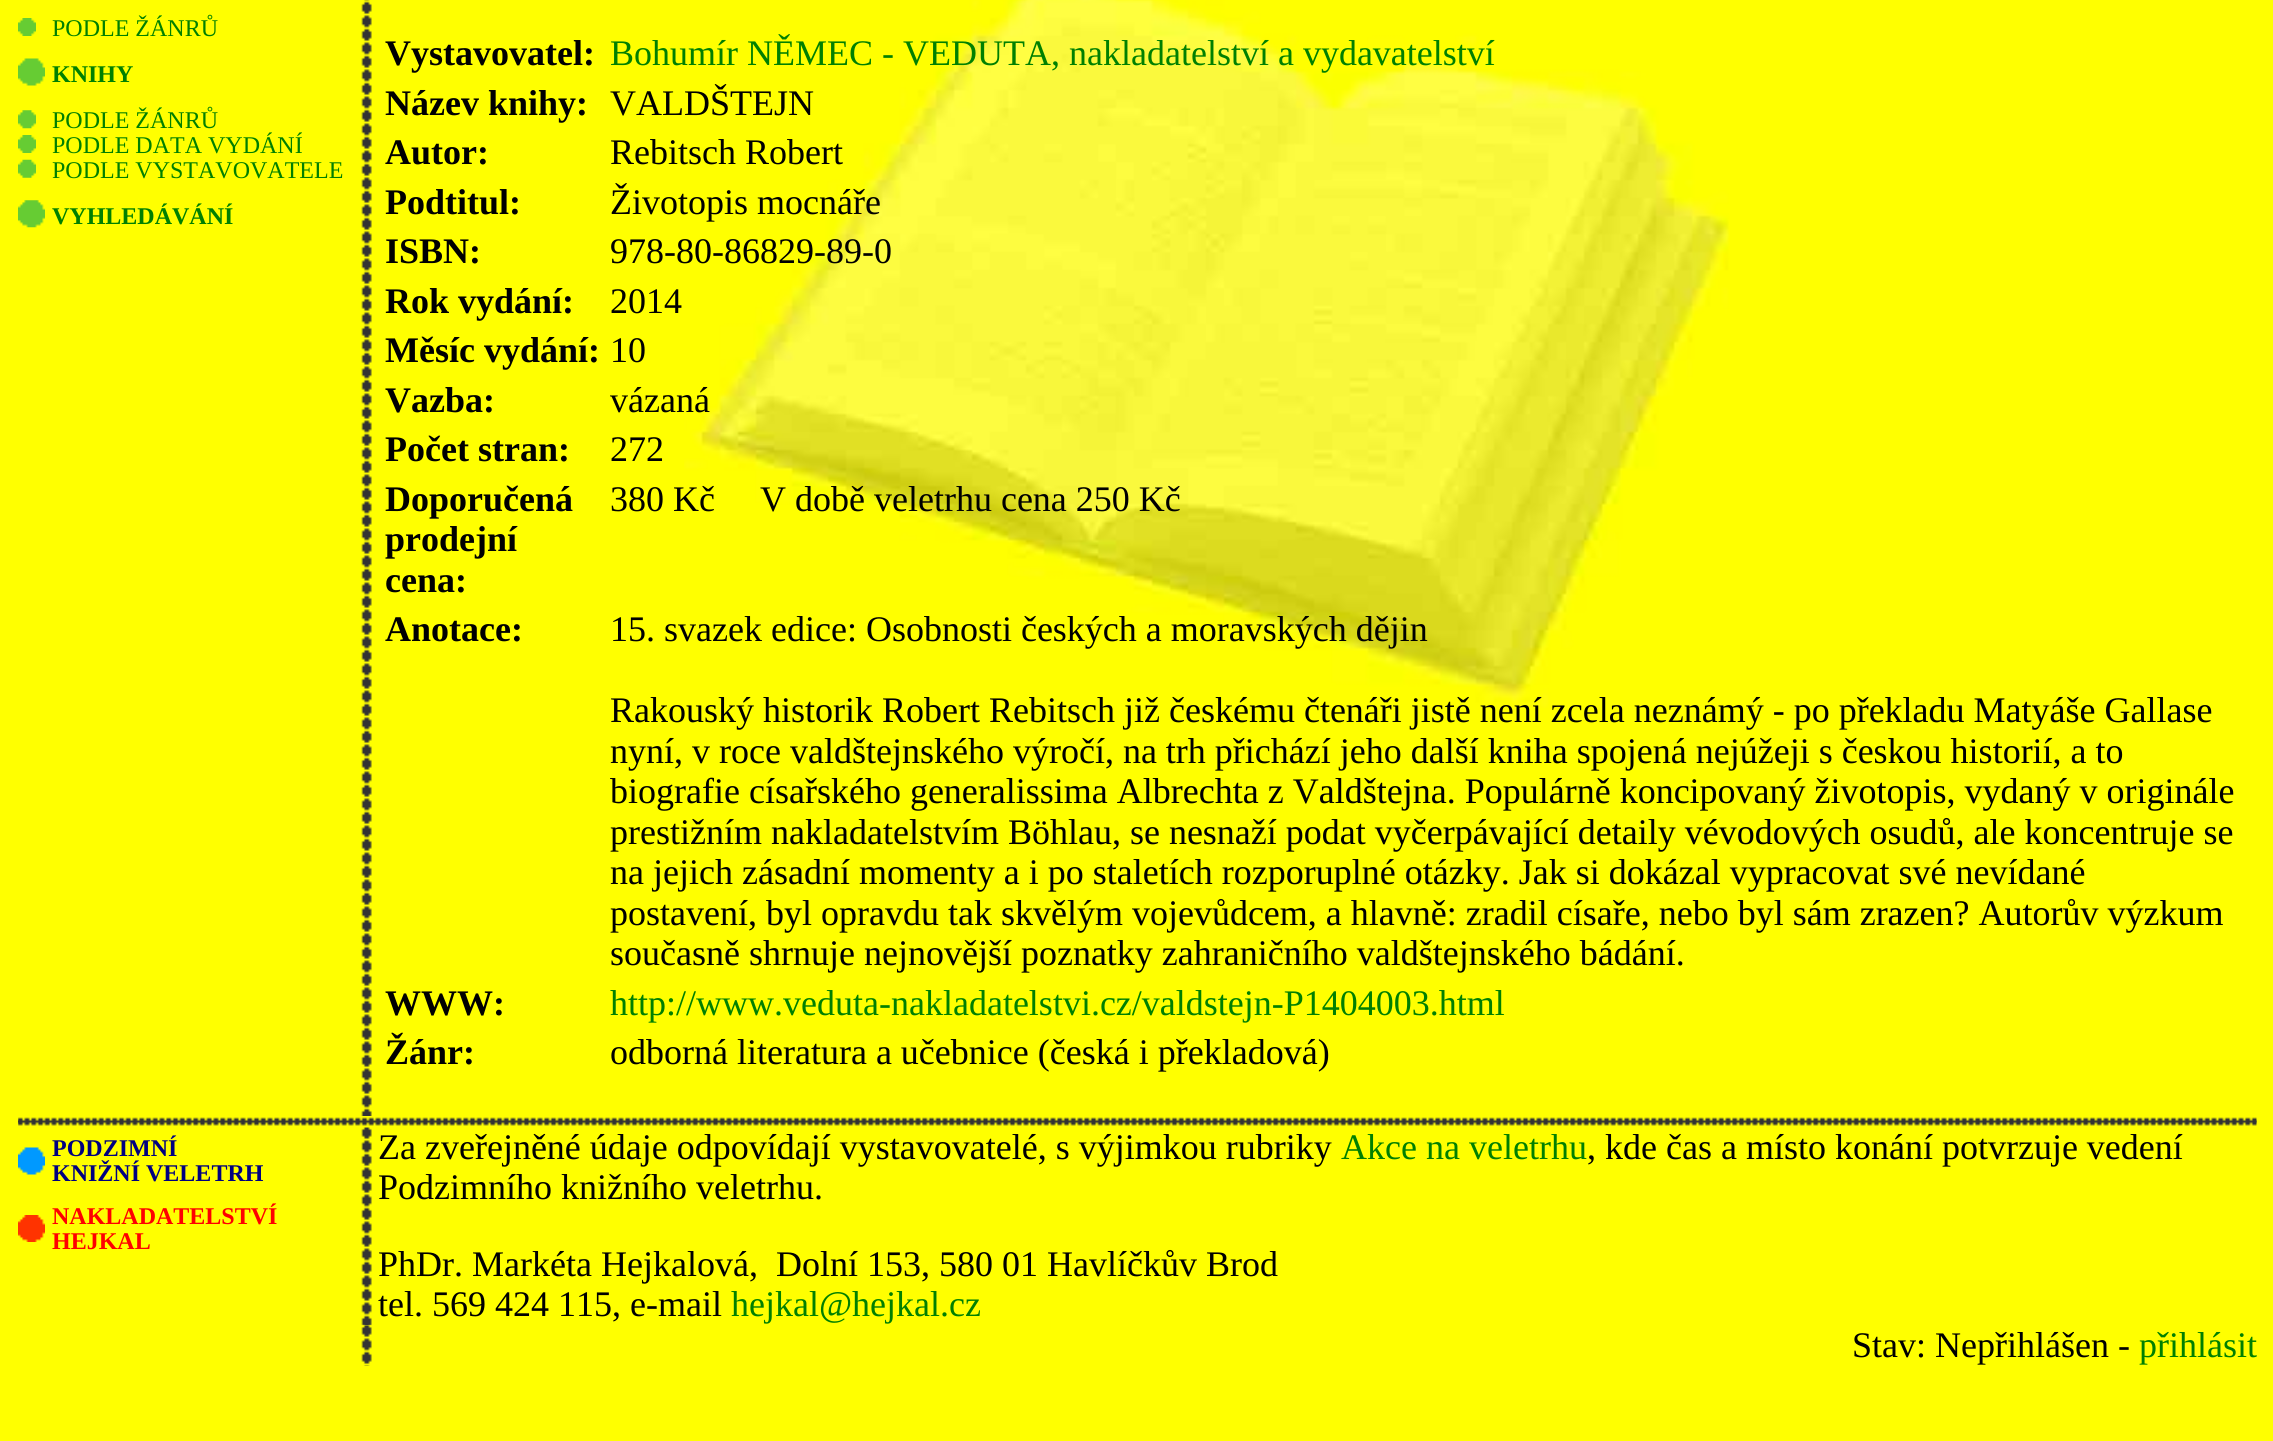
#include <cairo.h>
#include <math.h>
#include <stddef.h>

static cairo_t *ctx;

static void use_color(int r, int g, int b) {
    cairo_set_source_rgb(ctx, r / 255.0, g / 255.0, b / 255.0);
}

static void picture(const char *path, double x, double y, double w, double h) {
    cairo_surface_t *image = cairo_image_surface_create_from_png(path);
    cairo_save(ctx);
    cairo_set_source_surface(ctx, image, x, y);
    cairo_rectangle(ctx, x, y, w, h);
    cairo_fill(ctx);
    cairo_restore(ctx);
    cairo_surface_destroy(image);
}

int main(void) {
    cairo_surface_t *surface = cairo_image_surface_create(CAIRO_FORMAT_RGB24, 2273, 1441);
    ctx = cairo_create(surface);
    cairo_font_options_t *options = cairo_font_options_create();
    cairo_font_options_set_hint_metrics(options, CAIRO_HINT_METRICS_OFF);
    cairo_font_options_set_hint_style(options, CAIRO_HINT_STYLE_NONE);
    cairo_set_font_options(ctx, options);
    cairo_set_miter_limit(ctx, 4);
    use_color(255, 255, 0);
    cairo_paint(ctx);
    picture("img1.png", 684, 0, 1046, 708);
    picture("img2.png", 18, 18, 18, 18);
    cairo_select_font_face(ctx, "Liberation Serif", CAIRO_FONT_SLANT_NORMAL, CAIRO_FONT_WEIGHT_NORMAL);
    cairo_set_font_size(ctx, 24);
    use_color(0, 128, 0);
    cairo_move_to(ctx, 52, 36);
    cairo_show_text(ctx, "PODLE ŽÁNRŮ");
    picture("img3.png", 18, 58, 27, 28);
    cairo_select_font_face(ctx, "Liberation Serif", CAIRO_FONT_SLANT_NORMAL, CAIRO_FONT_WEIGHT_BOLD);
    cairo_move_to(ctx, 52, 82);
    cairo_show_text(ctx, "KNIHY");
    picture("img4.png", 18, 110, 18, 19);
    cairo_select_font_face(ctx, "Liberation Serif", CAIRO_FONT_SLANT_NORMAL, CAIRO_FONT_WEIGHT_NORMAL);
    cairo_move_to(ctx, 52, 128);
    cairo_show_text(ctx, "PODLE ŽÁNRŮ");
    picture("img2.png", 18, 135, 18, 18);
    cairo_move_to(ctx, 52, 153);
    cairo_show_text(ctx, "PODLE DATA VYDÁNÍ");
    picture("img5.png", 18, 159, 18, 19);
    cairo_move_to(ctx, 52, 178);
    cairo_show_text(ctx, "PODLE VYSTAVOVATELE");
    picture("img6.png", 18, 200, 27, 28);
    cairo_select_font_face(ctx, "Liberation Serif", CAIRO_FONT_SLANT_NORMAL, CAIRO_FONT_WEIGHT_BOLD);
    cairo_move_to(ctx, 52, 224);
    cairo_show_text(ctx, "VYHLEDÁVÁNÍ");
    picture("img7.png", 361, 0, 11, 1116);
    cairo_set_font_size(ctx, 36);
    use_color(0, 0, 0);
    cairo_move_to(ctx, 385, 65);
    cairo_show_text(ctx, "Vystavovatel:");
    cairo_select_font_face(ctx, "Liberation Serif", CAIRO_FONT_SLANT_NORMAL, CAIRO_FONT_WEIGHT_NORMAL);
    use_color(0, 128, 0);
    cairo_move_to(ctx, 610, 65);
    cairo_show_text(ctx, "Bohumír NĚMEC - VEDUTA, nakladatelství a vydavatelství");
    cairo_select_font_face(ctx, "Liberation Serif", CAIRO_FONT_SLANT_NORMAL, CAIRO_FONT_WEIGHT_BOLD);
    use_color(0, 0, 0);
    cairo_move_to(ctx, 385, 115);
    cairo_show_text(ctx, "Název knihy:");
    cairo_select_font_face(ctx, "Liberation Serif", CAIRO_FONT_SLANT_NORMAL, CAIRO_FONT_WEIGHT_NORMAL);
    cairo_move_to(ctx, 610, 115);
    cairo_show_text(ctx, "VALDŠTEJN");
    cairo_select_font_face(ctx, "Liberation Serif", CAIRO_FONT_SLANT_NORMAL, CAIRO_FONT_WEIGHT_BOLD);
    cairo_move_to(ctx, 385, 164);
    cairo_show_text(ctx, "Autor:");
    cairo_select_font_face(ctx, "Liberation Serif", CAIRO_FONT_SLANT_NORMAL, CAIRO_FONT_WEIGHT_NORMAL);
    cairo_move_to(ctx, 610, 164);
    cairo_show_text(ctx, "Rebitsch Robert");
    cairo_select_font_face(ctx, "Liberation Serif", CAIRO_FONT_SLANT_NORMAL, CAIRO_FONT_WEIGHT_BOLD);
    cairo_move_to(ctx, 385, 214);
    cairo_show_text(ctx, "Podtitul:");
    cairo_select_font_face(ctx, "Liberation Serif", CAIRO_FONT_SLANT_NORMAL, CAIRO_FONT_WEIGHT_NORMAL);
    cairo_move_to(ctx, 610, 214);
    cairo_show_text(ctx, "Životopis mocnáře");
    cairo_select_font_face(ctx, "Liberation Serif", CAIRO_FONT_SLANT_NORMAL, CAIRO_FONT_WEIGHT_BOLD);
    cairo_move_to(ctx, 385, 263);
    cairo_show_text(ctx, "ISBN:");
    cairo_select_font_face(ctx, "Liberation Serif", CAIRO_FONT_SLANT_NORMAL, CAIRO_FONT_WEIGHT_NORMAL);
    cairo_move_to(ctx, 610, 263);
    cairo_show_text(ctx, "978-80-86829-89-0");
    cairo_select_font_face(ctx, "Liberation Serif", CAIRO_FONT_SLANT_NORMAL, CAIRO_FONT_WEIGHT_BOLD);
    cairo_move_to(ctx, 385, 313);
    cairo_show_text(ctx, "Rok vydání:");
    cairo_select_font_face(ctx, "Liberation Serif", CAIRO_FONT_SLANT_NORMAL, CAIRO_FONT_WEIGHT_NORMAL);
    cairo_move_to(ctx, 610, 313);
    cairo_show_text(ctx, "2014");
    cairo_select_font_face(ctx, "Liberation Serif", CAIRO_FONT_SLANT_NORMAL, CAIRO_FONT_WEIGHT_BOLD);
    cairo_move_to(ctx, 385, 362);
    cairo_show_text(ctx, "Měsíc vydání:");
    cairo_select_font_face(ctx, "Liberation Serif", CAIRO_FONT_SLANT_NORMAL, CAIRO_FONT_WEIGHT_NORMAL);
    cairo_move_to(ctx, 610, 362);
    cairo_show_text(ctx, "10");
    cairo_select_font_face(ctx, "Liberation Serif", CAIRO_FONT_SLANT_NORMAL, CAIRO_FONT_WEIGHT_BOLD);
    cairo_move_to(ctx, 385, 412);
    cairo_show_text(ctx, "Vazba:");
    cairo_select_font_face(ctx, "Liberation Serif", CAIRO_FONT_SLANT_NORMAL, CAIRO_FONT_WEIGHT_NORMAL);
    cairo_move_to(ctx, 610, 412);
    cairo_show_text(ctx, "vázaná");
    cairo_select_font_face(ctx, "Liberation Serif", CAIRO_FONT_SLANT_NORMAL, CAIRO_FONT_WEIGHT_BOLD);
    cairo_move_to(ctx, 385, 461);
    cairo_show_text(ctx, "Počet stran:");
    cairo_select_font_face(ctx, "Liberation Serif", CAIRO_FONT_SLANT_NORMAL, CAIRO_FONT_WEIGHT_NORMAL);
    cairo_move_to(ctx, 610, 461);
    cairo_show_text(ctx, "272");
    cairo_select_font_face(ctx, "Liberation Serif", CAIRO_FONT_SLANT_NORMAL, CAIRO_FONT_WEIGHT_BOLD);
    cairo_move_to(ctx, 385, 511);
    cairo_show_text(ctx, "Doporučená");
    cairo_move_to(ctx, 385, 551);
    cairo_show_text(ctx, "prodejní");
    cairo_move_to(ctx, 385, 592);
    cairo_show_text(ctx, "cena:");
    cairo_select_font_face(ctx, "Liberation Serif", CAIRO_FONT_SLANT_NORMAL, CAIRO_FONT_WEIGHT_NORMAL);
    cairo_move_to(ctx, 610, 511);
    cairo_show_text(ctx, "380 Kč     V době veletrhu cena 250 Kč");
    cairo_select_font_face(ctx, "Liberation Serif", CAIRO_FONT_SLANT_NORMAL, CAIRO_FONT_WEIGHT_BOLD);
    cairo_move_to(ctx, 385, 641);
    cairo_show_text(ctx, "Anotace:");
    cairo_select_font_face(ctx, "Liberation Serif", CAIRO_FONT_SLANT_NORMAL, CAIRO_FONT_WEIGHT_NORMAL);
    cairo_move_to(ctx, 610, 641);
    cairo_show_text(ctx, "15. svazek edice: Osobnosti českých a moravských dějin");
    cairo_move_to(ctx, 610, 722);
    cairo_show_text(ctx, "Rakouský historik Robert Rebitsch již českému čtenáři jistě není zcela neznámý - po překladu Matyáše Gallase");
    cairo_move_to(ctx, 610, 763);
    cairo_show_text(ctx, "nyní, v roce valdštejnského výročí, na trh přichází jeho další kniha spojená nejúžeji s českou historií, a to");
    cairo_move_to(ctx, 610, 803);
    cairo_show_text(ctx, "biografie císařského generalissima Albrechta z Valdštejna. Populárně koncipovaný životopis, vydaný v originále");
    cairo_move_to(ctx, 610, 844);
    cairo_show_text(ctx, "prestižním nakladatelstvím Böhlau, se nesnaží podat vyčerpávající detaily vévodových osudů, ale koncentruje se");
    cairo_move_to(ctx, 610, 884);
    cairo_show_text(ctx, "na jejich zásadní momenty a i po staletích rozporuplné otázky. Jak si dokázal vypracovat své nevídané");
    cairo_move_to(ctx, 610, 925);
    cairo_show_text(ctx, "postavení, byl opravdu tak skvělým vojevůdcem, a hlavně: zradil císaře, nebo byl sám zrazen? Autorův výzkum");
    cairo_move_to(ctx, 610, 965);
    cairo_show_text(ctx, "současně shrnuje nejnovější poznatky zahraničního valdštejnského bádání.");
    cairo_select_font_face(ctx, "Liberation Serif", CAIRO_FONT_SLANT_NORMAL, CAIRO_FONT_WEIGHT_BOLD);
    cairo_move_to(ctx, 385, 1015);
    cairo_show_text(ctx, "WWW:");
    cairo_select_font_face(ctx, "Liberation Serif", CAIRO_FONT_SLANT_NORMAL, CAIRO_FONT_WEIGHT_NORMAL);
    use_color(0, 128, 0);
    cairo_move_to(ctx, 610, 1015);
    cairo_show_text(ctx, "http://www.veduta-nakladatelstvi.cz/valdstejn-P1404003.html");
    cairo_select_font_face(ctx, "Liberation Serif", CAIRO_FONT_SLANT_NORMAL, CAIRO_FONT_WEIGHT_BOLD);
    use_color(0, 0, 0);
    cairo_move_to(ctx, 385, 1064);
    cairo_show_text(ctx, "Žánr:");
    cairo_select_font_face(ctx, "Liberation Serif", CAIRO_FONT_SLANT_NORMAL, CAIRO_FONT_WEIGHT_NORMAL);
    cairo_move_to(ctx, 610, 1064);
    cairo_show_text(ctx, "odborná literatura a učebnice (česká i překladová)");
    picture("img8.png", 18, 1117, 2239, 9);
    picture("img9.png", 18, 1147, 27, 28);
    cairo_select_font_face(ctx, "Liberation Serif", CAIRO_FONT_SLANT_NORMAL, CAIRO_FONT_WEIGHT_BOLD);
    cairo_set_font_size(ctx, 24);
    use_color(0, 0, 128);
    cairo_move_to(ctx, 52, 1156);
    cairo_show_text(ctx, "PODZIMNÍ");
    cairo_move_to(ctx, 52, 1181);
    cairo_show_text(ctx, "KNIŽNÍ VELETRH");
    picture("img10.png", 18, 1215, 27, 27);
    use_color(255, 0, 0);
    cairo_move_to(ctx, 52, 1224);
    cairo_show_text(ctx, "NAKLADATELSTVÍ");
    cairo_move_to(ctx, 52, 1249);
    cairo_show_text(ctx, "HEJKAL");
    picture("img11.png", 361, 1127, 11, 199);
    cairo_select_font_face(ctx, "Liberation Serif", CAIRO_FONT_SLANT_NORMAL, CAIRO_FONT_WEIGHT_NORMAL);
    cairo_set_font_size(ctx, 36);
    use_color(0, 0, 0);
    cairo_move_to(ctx, 378, 1159);
    cairo_show_text(ctx, "Za zveřejněné údaje odpovídají vystavovatelé, s výjimkou rubriky");
    use_color(0, 128, 0);
    cairo_move_to(ctx, 1341, 1159);
    cairo_show_text(ctx, "Akce na veletrhu");
    use_color(0, 0, 0);
    cairo_move_to(ctx, 1587, 1159);
    cairo_show_text(ctx, ", kde čas a místo konání potvrzuje vedení");
    cairo_move_to(ctx, 378, 1199);
    cairo_show_text(ctx, "Podzimního knižního veletrhu.");
    cairo_move_to(ctx, 378, 1276);
    cairo_show_text(ctx, "PhDr. Markéta Hejkalová,");
    cairo_move_to(ctx, 776, 1276);
    cairo_show_text(ctx, "Dolní 153, 580 01 Havlíčkův Brod");
    cairo_move_to(ctx, 378, 1316);
    cairo_show_text(ctx, "tel. 569 424 115, e-mail");
    use_color(0, 128, 0);
    cairo_move_to(ctx, 731, 1316);
    cairo_show_text(ctx, "hejkal@hejkal.cz");
    picture("img12.png", 361, 1325, 11, 41);
    use_color(0, 0, 0);
    cairo_move_to(ctx, 1852, 1357);
    cairo_show_text(ctx, "Stav: Nepřihlášen -");
    use_color(0, 128, 0);
    cairo_move_to(ctx, 2139, 1357);
    cairo_show_text(ctx, "přihlásit");
    cairo_surface_write_to_png(surface, "result.png");
    cairo_font_options_destroy(options);
    cairo_destroy(ctx);
    cairo_surface_destroy(surface);
    return 0;
}
